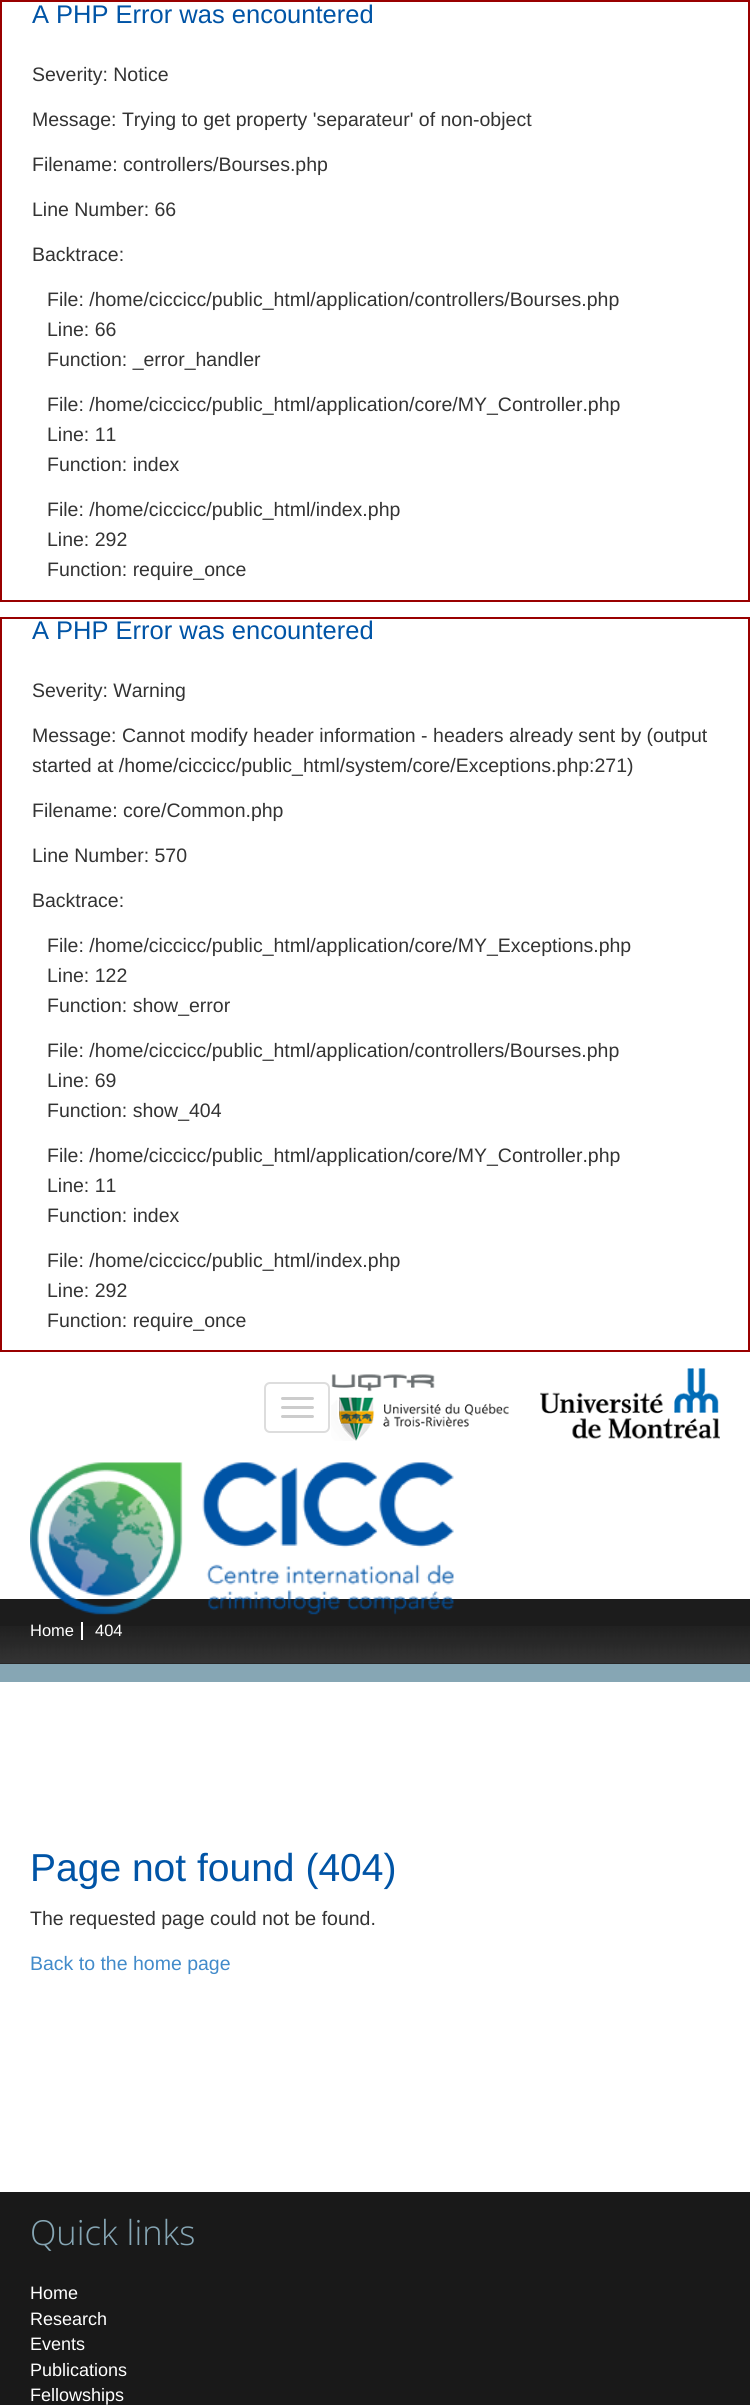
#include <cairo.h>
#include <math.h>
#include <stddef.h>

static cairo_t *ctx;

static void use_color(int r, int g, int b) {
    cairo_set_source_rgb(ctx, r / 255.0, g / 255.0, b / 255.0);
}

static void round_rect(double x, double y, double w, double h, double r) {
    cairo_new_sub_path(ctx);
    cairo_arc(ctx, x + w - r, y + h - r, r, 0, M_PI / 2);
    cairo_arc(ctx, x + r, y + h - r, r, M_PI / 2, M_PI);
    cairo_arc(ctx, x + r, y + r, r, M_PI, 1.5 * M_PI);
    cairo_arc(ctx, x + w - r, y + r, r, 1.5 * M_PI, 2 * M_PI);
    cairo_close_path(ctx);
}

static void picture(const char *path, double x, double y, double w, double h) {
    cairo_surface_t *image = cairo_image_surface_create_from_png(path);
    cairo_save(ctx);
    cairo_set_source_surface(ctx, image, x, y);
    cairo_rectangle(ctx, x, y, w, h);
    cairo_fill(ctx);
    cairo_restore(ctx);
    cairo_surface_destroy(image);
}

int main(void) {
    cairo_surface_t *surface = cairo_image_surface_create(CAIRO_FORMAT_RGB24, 750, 2405);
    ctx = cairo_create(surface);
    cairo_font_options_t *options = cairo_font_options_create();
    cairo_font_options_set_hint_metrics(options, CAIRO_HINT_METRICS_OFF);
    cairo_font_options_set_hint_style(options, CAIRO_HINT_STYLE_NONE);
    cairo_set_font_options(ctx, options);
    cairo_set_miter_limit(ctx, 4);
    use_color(255, 255, 255);
    cairo_paint(ctx);
    cairo_rectangle(ctx, 1, 1, 748, 600);
    use_color(153, 0, 0);
    cairo_stroke(ctx);
    cairo_select_font_face(ctx, "Liberation Sans", CAIRO_FONT_SLANT_NORMAL, CAIRO_FONT_WEIGHT_NORMAL);
    cairo_set_font_size(ctx, 25.5);
    use_color(0, 84, 166);
    cairo_move_to(ctx, 32, 23);
    cairo_show_text(ctx, "A PHP Error was encountered");
    cairo_set_font_size(ctx, 19.5);
    use_color(51, 51, 51);
    cairo_move_to(ctx, 32, 81);
    cairo_show_text(ctx, "Severity: Notice");
    cairo_move_to(ctx, 32, 126);
    cairo_show_text(ctx, "Message: Trying to get property 'separateur' of non-object");
    cairo_move_to(ctx, 32, 171);
    cairo_show_text(ctx, "Filename: controllers/Bourses.php");
    cairo_move_to(ctx, 32, 216);
    cairo_show_text(ctx, "Line Number: 66");
    cairo_move_to(ctx, 32, 261);
    cairo_show_text(ctx, "Backtrace:");
    cairo_move_to(ctx, 47, 306);
    cairo_show_text(ctx, "File: /home/ciccicc/public_html/application/controllers/Bourses.php");
    cairo_move_to(ctx, 47, 336);
    cairo_show_text(ctx, "Line: 66");
    cairo_move_to(ctx, 47, 366);
    cairo_show_text(ctx, "Function: _error_handler");
    cairo_move_to(ctx, 47, 411);
    cairo_show_text(ctx, "File: /home/ciccicc/public_html/application/core/MY_Controller.php");
    cairo_move_to(ctx, 47, 441);
    cairo_show_text(ctx, "Line: 11");
    cairo_move_to(ctx, 47, 471);
    cairo_show_text(ctx, "Function: index");
    cairo_move_to(ctx, 47, 516);
    cairo_show_text(ctx, "File: /home/ciccicc/public_html/index.php");
    cairo_move_to(ctx, 47, 546);
    cairo_show_text(ctx, "Line: 292");
    cairo_move_to(ctx, 47, 576);
    cairo_show_text(ctx, "Function: require_once");
    cairo_rectangle(ctx, 1, 618, 748, 733);
    use_color(153, 0, 0);
    cairo_stroke(ctx);
    cairo_set_font_size(ctx, 25.5);
    use_color(0, 84, 166);
    cairo_move_to(ctx, 32, 639);
    cairo_show_text(ctx, "A PHP Error was encountered");
    cairo_set_font_size(ctx, 19.5);
    use_color(51, 51, 51);
    cairo_move_to(ctx, 32, 697);
    cairo_show_text(ctx, "Severity: Warning");
    cairo_move_to(ctx, 32, 742);
    cairo_show_text(ctx, "Message: Cannot modify header information - headers already sent by (output");
    cairo_move_to(ctx, 32, 772);
    cairo_show_text(ctx, "started at /home/ciccicc/public_html/system/core/Exceptions.php:271)");
    cairo_move_to(ctx, 32, 817);
    cairo_show_text(ctx, "Filename: core/Common.php");
    cairo_move_to(ctx, 32, 862);
    cairo_show_text(ctx, "Line Number: 570");
    cairo_move_to(ctx, 32, 907);
    cairo_show_text(ctx, "Backtrace:");
    cairo_move_to(ctx, 47, 952);
    cairo_show_text(ctx, "File: /home/ciccicc/public_html/application/core/MY_Exceptions.php");
    cairo_move_to(ctx, 47, 982);
    cairo_show_text(ctx, "Line: 122");
    cairo_move_to(ctx, 47, 1012);
    cairo_show_text(ctx, "Function: show_error");
    cairo_move_to(ctx, 47, 1057);
    cairo_show_text(ctx, "File: /home/ciccicc/public_html/application/controllers/Bourses.php");
    cairo_move_to(ctx, 47, 1087);
    cairo_show_text(ctx, "Line: 69");
    cairo_move_to(ctx, 47, 1117);
    cairo_show_text(ctx, "Function: show_404");
    cairo_move_to(ctx, 47, 1162);
    cairo_show_text(ctx, "File: /home/ciccicc/public_html/application/core/MY_Controller.php");
    cairo_move_to(ctx, 47, 1192);
    cairo_show_text(ctx, "Line: 11");
    cairo_move_to(ctx, 47, 1222);
    cairo_show_text(ctx, "Function: index");
    cairo_move_to(ctx, 47, 1267);
    cairo_show_text(ctx, "File: /home/ciccicc/public_html/index.php");
    cairo_move_to(ctx, 47, 1297);
    cairo_show_text(ctx, "Line: 292");
    cairo_move_to(ctx, 47, 1327);
    cairo_show_text(ctx, "Function: require_once");
    round_rect(265, 1383, 64, 49, 5);
    use_color(221, 221, 221);
    cairo_stroke(ctx);
    use_color(204, 204, 204);
    round_rect(281, 1397, 33, 3, 1.5);
    cairo_fill(ctx);
    round_rect(281, 1406, 33, 3, 1.5);
    cairo_fill(ctx);
    round_rect(281, 1415, 33, 3, 1.5);
    cairo_fill(ctx);
    use_color(28, 28, 28);
    cairo_rectangle(ctx, 0, 1599, 750, 65);
    cairo_fill(ctx);
    picture("img1.png", 30, 1462, 424, 153);
    picture("img2.png", 331, 1374, 178, 67);
    picture("img3.png", 540, 1368, 180, 71);
    picture("img4.png", 0, 1626, 750, 38);
    cairo_set_font_size(ctx, 16.5);
    use_color(255, 255, 255);
    cairo_move_to(ctx, 30, 1636);
    cairo_show_text(ctx, "Home");
    cairo_rectangle(ctx, 81, 1622, 2, 18);
    cairo_fill(ctx);
    cairo_move_to(ctx, 95, 1636);
    cairo_show_text(ctx, "404");
    use_color(134, 166, 180);
    cairo_rectangle(ctx, 0, 1664, 750, 18);
    cairo_fill(ctx);
    cairo_set_font_size(ctx, 39);
    use_color(0, 84, 166);
    cairo_move_to(ctx, 30, 1881);
    cairo_show_text(ctx, "Page not found (404)");
    cairo_set_font_size(ctx, 19.5);
    use_color(51, 51, 51);
    cairo_move_to(ctx, 30, 1925);
    cairo_show_text(ctx, "The requested page could not be found.");
    use_color(66, 139, 202);
    cairo_move_to(ctx, 30, 1970);
    cairo_show_text(ctx, "Back to the home page");
    use_color(25, 25, 25);
    cairo_rectangle(ctx, 0, 2192, 750, 213);
    cairo_fill(ctx);
    cairo_select_font_face(ctx, "Open Sans Light", CAIRO_FONT_SLANT_NORMAL, CAIRO_FONT_WEIGHT_NORMAL);
    cairo_set_font_size(ctx, 34.5);
    use_color(134, 166, 180);
    cairo_move_to(ctx, 30, 2245);
    cairo_show_text(ctx, "Quick links");
    cairo_select_font_face(ctx, "Liberation Sans", CAIRO_FONT_SLANT_NORMAL, CAIRO_FONT_WEIGHT_NORMAL);
    cairo_set_font_size(ctx, 18);
    use_color(255, 255, 255);
    cairo_move_to(ctx, 30, 2299);
    cairo_show_text(ctx, "Home");
    cairo_move_to(ctx, 30, 2325);
    cairo_show_text(ctx, "Research");
    cairo_move_to(ctx, 30, 2350);
    cairo_show_text(ctx, "Events");
    cairo_move_to(ctx, 30, 2376);
    cairo_show_text(ctx, "Publications");
    cairo_move_to(ctx, 30, 2401);
    cairo_show_text(ctx, "Fellowships");
    cairo_surface_write_to_png(surface, "result.png");
    cairo_font_options_destroy(options);
    cairo_destroy(ctx);
    cairo_surface_destroy(surface);
    return 0;
}
